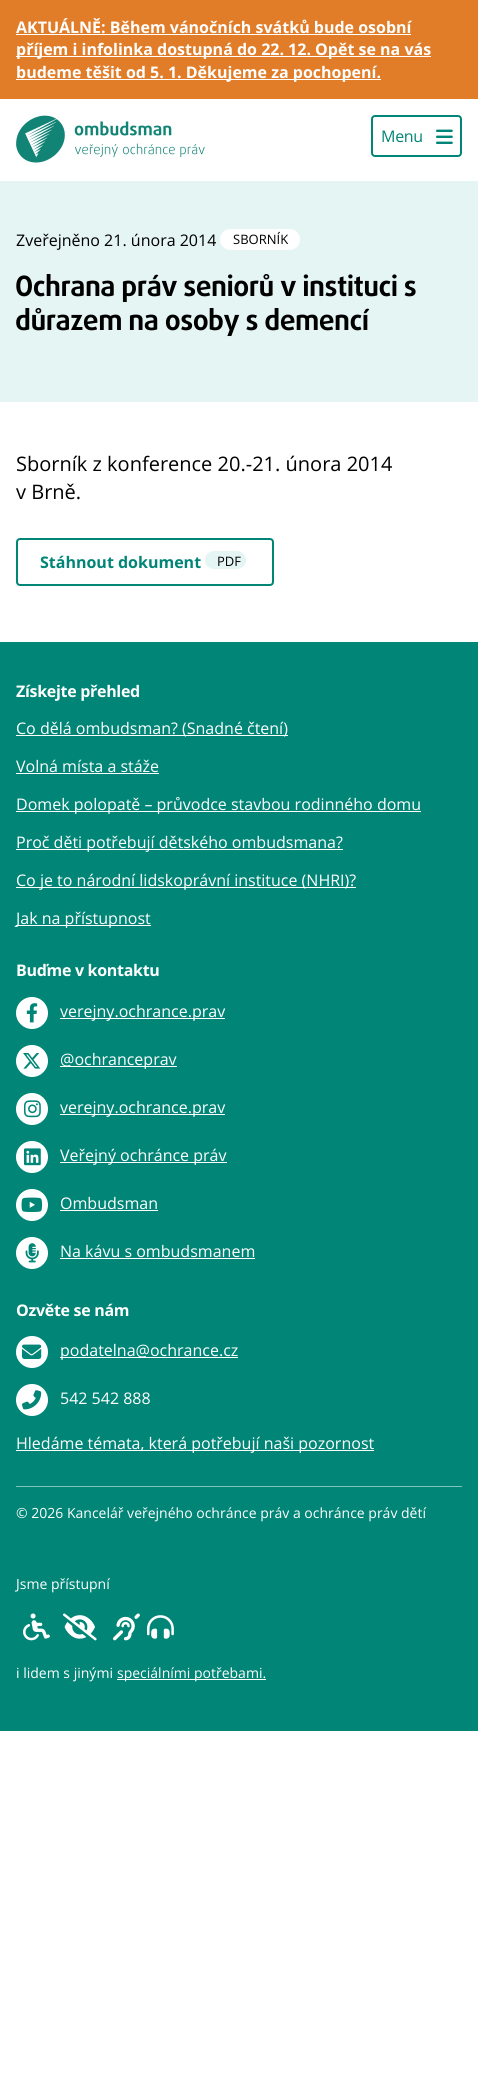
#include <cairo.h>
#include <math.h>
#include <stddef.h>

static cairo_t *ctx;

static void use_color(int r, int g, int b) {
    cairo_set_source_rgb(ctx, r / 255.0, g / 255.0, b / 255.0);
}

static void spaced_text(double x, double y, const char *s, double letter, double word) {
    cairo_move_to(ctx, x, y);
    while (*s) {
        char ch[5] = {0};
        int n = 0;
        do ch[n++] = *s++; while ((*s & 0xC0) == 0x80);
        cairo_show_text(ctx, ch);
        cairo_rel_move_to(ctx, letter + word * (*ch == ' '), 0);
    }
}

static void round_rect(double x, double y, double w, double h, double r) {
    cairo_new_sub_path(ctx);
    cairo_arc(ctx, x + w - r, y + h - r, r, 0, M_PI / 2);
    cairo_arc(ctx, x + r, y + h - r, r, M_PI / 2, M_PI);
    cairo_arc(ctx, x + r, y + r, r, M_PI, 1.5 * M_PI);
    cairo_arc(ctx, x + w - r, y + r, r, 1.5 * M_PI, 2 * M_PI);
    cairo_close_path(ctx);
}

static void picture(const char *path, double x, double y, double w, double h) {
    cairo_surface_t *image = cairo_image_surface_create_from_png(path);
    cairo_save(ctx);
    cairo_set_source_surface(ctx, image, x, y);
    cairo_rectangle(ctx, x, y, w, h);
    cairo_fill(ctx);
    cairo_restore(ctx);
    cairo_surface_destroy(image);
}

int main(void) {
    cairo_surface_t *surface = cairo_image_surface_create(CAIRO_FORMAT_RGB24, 478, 2080);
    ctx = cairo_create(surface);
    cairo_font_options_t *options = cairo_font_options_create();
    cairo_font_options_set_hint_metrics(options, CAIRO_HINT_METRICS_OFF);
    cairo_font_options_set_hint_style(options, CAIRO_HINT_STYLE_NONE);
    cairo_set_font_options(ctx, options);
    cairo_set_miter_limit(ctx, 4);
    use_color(255, 255, 255);
    cairo_paint(ctx);
    use_color(225, 125, 40);
    cairo_rectangle(ctx, 0, 0, 478, 99);
    cairo_fill(ctx);
    cairo_select_font_face(ctx, "Open Sans", CAIRO_FONT_SLANT_NORMAL, CAIRO_FONT_WEIGHT_BOLD);
    cairo_set_font_size(ctx, 16);
    use_color(255, 255, 255);
    cairo_move_to(ctx, 16, 33);
    cairo_show_text(ctx, "AKTUÁLNĚ: Během vánočních svátků bude osobní");
    cairo_rectangle(ctx, 16, 34, 395, 1);
    cairo_fill(ctx);
    cairo_rectangle(ctx, 16, 56, 415, 1);
    cairo_fill(ctx);
    cairo_move_to(ctx, 16, 55);
    cairo_show_text(ctx, "příjem i infolinka dostupná do 22. 12. Opět se na vás");
    cairo_rectangle(ctx, 16, 79, 365, 1);
    cairo_fill(ctx);
    cairo_move_to(ctx, 16, 78);
    cairo_show_text(ctx, "budeme těšit od 5. 1. Děkujeme za pochopení.");
    picture("img1.png", 16, 115, 189, 48);
    round_rect(372, 116, 89, 40, 3);
    use_color(0, 133, 118);
    cairo_stroke(ctx);
    cairo_select_font_face(ctx, "Open Sans", CAIRO_FONT_SLANT_NORMAL, CAIRO_FONT_WEIGHT_NORMAL);
    spaced_text(381, 142, "Menu", -0.3, 0);
    picture("img2.png", 436, 129, 17, 15);
    use_color(229, 245, 243);
    cairo_rectangle(ctx, 0, 181, 478, 221);
    cairo_fill(ctx);
    use_color(0, 0, 0);
    cairo_move_to(ctx, 16, 246);
    cairo_show_text(ctx, "Zveřejněno 21. února 2014");
    use_color(255, 255, 255);
    round_rect(220, 229, 80, 21, 10.5);
    cairo_fill(ctx);
    cairo_set_font_size(ctx, 13);
    use_color(0, 0, 0);
    cairo_move_to(ctx, 233, 244);
    cairo_show_text(ctx, "SBORNÍK");
    cairo_select_font_face(ctx, "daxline", CAIRO_FONT_SLANT_NORMAL, CAIRO_FONT_WEIGHT_BOLD);
    cairo_set_font_size(ctx, 28);
    spaced_text(15, 296, "Ochrana práv seniorů v instituci s", -0.55, 0);
    spaced_text(15, 330, "důrazem na osoby s demencí", -0.55, 0);
    cairo_select_font_face(ctx, "Open Sans", CAIRO_FONT_SLANT_NORMAL, CAIRO_FONT_WEIGHT_NORMAL);
    cairo_set_font_size(ctx, 20);
    cairo_move_to(ctx, 16, 471);
    cairo_show_text(ctx, "Sborník z konference 20.-21. února 2014");
    cairo_move_to(ctx, 16, 499);
    cairo_show_text(ctx, "v Brně.");
    round_rect(17, 539, 256, 46, 3);
    use_color(0, 133, 118);
    cairo_stroke(ctx);
    cairo_select_font_face(ctx, "Open Sans", CAIRO_FONT_SLANT_NORMAL, CAIRO_FONT_WEIGHT_BOLD);
    cairo_set_font_size(ctx, 16);
    cairo_move_to(ctx, 40, 568);
    cairo_show_text(ctx, "Stáhnout dokument");
    use_color(229, 245, 243);
    round_rect(205, 551, 41, 18, 9);
    cairo_fill(ctx);
    cairo_select_font_face(ctx, "Open Sans", CAIRO_FONT_SLANT_NORMAL, CAIRO_FONT_WEIGHT_NORMAL);
    cairo_set_font_size(ctx, 13);
    use_color(0, 0, 0);
    cairo_move_to(ctx, 217, 566);
    cairo_show_text(ctx, "PDF");
    use_color(0, 133, 118);
    cairo_rectangle(ctx, 0, 642, 478, 1089);
    cairo_fill(ctx);
    cairo_select_font_face(ctx, "Open Sans", CAIRO_FONT_SLANT_NORMAL, CAIRO_FONT_WEIGHT_BOLD);
    cairo_set_font_size(ctx, 16);
    use_color(255, 255, 255);
    spaced_text(16, 697, "Získejte přehled", -0.3, 0);
    cairo_rectangle(ctx, 16, 735, 272, 1);
    cairo_fill(ctx);
    cairo_select_font_face(ctx, "Open Sans", CAIRO_FONT_SLANT_NORMAL, CAIRO_FONT_WEIGHT_NORMAL);
    cairo_move_to(ctx, 16, 734);
    cairo_show_text(ctx, "Co dělá ombudsman? (Snadné čtení)");
    cairo_move_to(ctx, 16, 772);
    cairo_show_text(ctx, "Volná místa a stáže");
    cairo_rectangle(ctx, 16, 773, 143, 1);
    cairo_fill(ctx);
    cairo_rectangle(ctx, 16, 811, 405, 1);
    cairo_fill(ctx);
    cairo_move_to(ctx, 16, 810);
    cairo_show_text(ctx, "Domek polopatě – průvodce stavbou rodinného domu");
    cairo_rectangle(ctx, 16, 849, 327, 1);
    cairo_fill(ctx);
    cairo_move_to(ctx, 16, 848);
    cairo_show_text(ctx, "Proč děti potřebují dětského ombudsmana?");
    cairo_rectangle(ctx, 16, 887, 340, 1);
    cairo_fill(ctx);
    cairo_move_to(ctx, 16, 886);
    cairo_show_text(ctx, "Co je to národní lidskoprávní instituce (NHRI)?");
    cairo_rectangle(ctx, 16, 925, 135, 1);
    cairo_fill(ctx);
    cairo_move_to(ctx, 16, 924);
    cairo_show_text(ctx, "Jak na přístupnost");
    cairo_select_font_face(ctx, "Open Sans", CAIRO_FONT_SLANT_NORMAL, CAIRO_FONT_WEIGHT_BOLD);
    spaced_text(16, 976, "Buďme v kontaktu", -0.3, 0);
    cairo_new_path(ctx);
    cairo_arc(ctx, 32, 1013, 16, 0, 2 * M_PI);
    cairo_fill(ctx);
    picture("img3.png", 26, 1003, 12, 20);
    cairo_rectangle(ctx, 60, 1018, 165, 1);
    cairo_fill(ctx);
    cairo_select_font_face(ctx, "Open Sans", CAIRO_FONT_SLANT_NORMAL, CAIRO_FONT_WEIGHT_NORMAL);
    cairo_move_to(ctx, 60, 1017);
    cairo_show_text(ctx, "verejny.ochrance.prav");
    cairo_new_path(ctx);
    cairo_arc(ctx, 32, 1061, 16, 0, 2 * M_PI);
    cairo_fill(ctx);
    picture("img4.png", 23, 1053, 18, 16);
    cairo_rectangle(ctx, 60, 1066, 117, 1);
    cairo_fill(ctx);
    cairo_move_to(ctx, 60, 1065);
    cairo_show_text(ctx, "@ochranceprav");
    cairo_new_path(ctx);
    cairo_arc(ctx, 32, 1109, 16, 0, 2 * M_PI);
    cairo_fill(ctx);
    picture("img5.png", 24, 1100, 17, 18);
    cairo_rectangle(ctx, 60, 1114, 165, 1);
    cairo_fill(ctx);
    cairo_move_to(ctx, 60, 1113);
    cairo_show_text(ctx, "verejny.ochrance.prav");
    cairo_new_path(ctx);
    cairo_arc(ctx, 32, 1157, 16, 0, 2 * M_PI);
    cairo_fill(ctx);
    picture("img6.png", 24, 1148, 17, 18);
    cairo_rectangle(ctx, 60, 1162, 167, 1);
    cairo_fill(ctx);
    cairo_move_to(ctx, 60, 1161);
    cairo_show_text(ctx, "Veřejný ochránce práv");
    cairo_new_path(ctx);
    cairo_arc(ctx, 32, 1205, 16, 0, 2 * M_PI);
    cairo_fill(ctx);
    picture("img7.png", 21, 1197, 22, 15);
    cairo_move_to(ctx, 60, 1209);
    cairo_show_text(ctx, "Ombudsman");
    cairo_rectangle(ctx, 60, 1210, 98, 1);
    cairo_fill(ctx);
    cairo_arc(ctx, 32, 1253, 16, 0, 2 * M_PI);
    cairo_fill(ctx);
    picture("img8.png", 25, 1243, 14, 20);
    cairo_move_to(ctx, 60, 1257);
    cairo_show_text(ctx, "Na kávu s ombudsmanem");
    cairo_rectangle(ctx, 60, 1258, 195, 1);
    cairo_fill(ctx);
    cairo_select_font_face(ctx, "Open Sans", CAIRO_FONT_SLANT_NORMAL, CAIRO_FONT_WEIGHT_BOLD);
    spaced_text(16, 1316, "Ozvěte se nám", -0.3, 0);
    cairo_new_path(ctx);
    cairo_arc(ctx, 32, 1352, 16, 0, 2 * M_PI);
    cairo_fill(ctx);
    picture("img9.png", 22, 1344, 20, 15);
    cairo_rectangle(ctx, 60, 1357, 178, 1);
    cairo_fill(ctx);
    cairo_select_font_face(ctx, "Open Sans", CAIRO_FONT_SLANT_NORMAL, CAIRO_FONT_WEIGHT_NORMAL);
    cairo_move_to(ctx, 60, 1356);
    cairo_show_text(ctx, "podatelna@ochrance.cz");
    cairo_new_path(ctx);
    cairo_arc(ctx, 32, 1400, 16, 0, 2 * M_PI);
    cairo_fill(ctx);
    picture("img10.png", 22, 1390, 20, 20);
    cairo_move_to(ctx, 60, 1404);
    cairo_show_text(ctx, "542 542 888");
    cairo_rectangle(ctx, 16, 1450, 358, 1);
    cairo_fill(ctx);
    cairo_move_to(ctx, 16, 1449);
    cairo_show_text(ctx, "Hledáme témata, která potřebují naši pozornost");
    use_color(127, 194, 186);
    cairo_rectangle(ctx, 16, 1486, 446, 1);
    cairo_fill(ctx);
    cairo_set_font_size(ctx, 14);
    use_color(255, 255, 255);
    cairo_move_to(ctx, 16, 1518);
    cairo_show_text(ctx, "© 2026 Kancelář veřejného ochránce práv a ochránce práv dětí");
    cairo_move_to(ctx, 16, 1589);
    cairo_show_text(ctx, "Jsme přístupní");
    picture("img11.png", 23, 1613, 27, 28);
    picture("img12.png", 63, 1613, 34, 28);
    picture("img13.png", 113, 1613, 27, 28);
    picture("img14.png", 147, 1615, 27, 24);
    cairo_move_to(ctx, 16, 1678);
    cairo_show_text(ctx, "i lidem s jinými");
    cairo_rectangle(ctx, 117, 1679, 149, 1);
    cairo_fill(ctx);
    cairo_move_to(ctx, 117, 1678);
    cairo_show_text(ctx, "speciálními potřebami.");
    cairo_surface_write_to_png(surface, "result.png");
    cairo_font_options_destroy(options);
    cairo_destroy(ctx);
    cairo_surface_destroy(surface);
    return 0;
}
